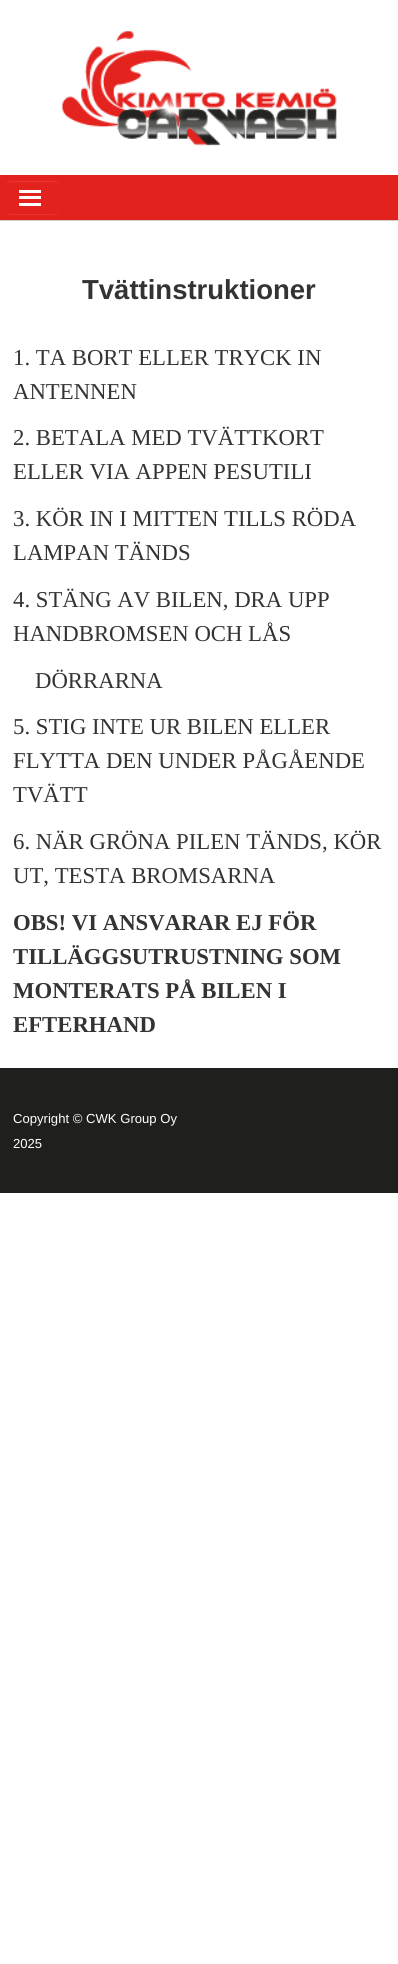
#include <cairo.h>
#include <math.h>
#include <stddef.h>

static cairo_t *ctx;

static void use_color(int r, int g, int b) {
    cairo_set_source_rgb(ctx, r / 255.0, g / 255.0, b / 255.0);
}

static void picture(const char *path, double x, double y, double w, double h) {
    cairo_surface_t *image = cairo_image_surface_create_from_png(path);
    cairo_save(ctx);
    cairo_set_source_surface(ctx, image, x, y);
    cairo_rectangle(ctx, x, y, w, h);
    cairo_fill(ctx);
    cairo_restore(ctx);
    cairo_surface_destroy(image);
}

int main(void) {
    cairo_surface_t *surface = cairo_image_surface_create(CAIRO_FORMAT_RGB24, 398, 1964);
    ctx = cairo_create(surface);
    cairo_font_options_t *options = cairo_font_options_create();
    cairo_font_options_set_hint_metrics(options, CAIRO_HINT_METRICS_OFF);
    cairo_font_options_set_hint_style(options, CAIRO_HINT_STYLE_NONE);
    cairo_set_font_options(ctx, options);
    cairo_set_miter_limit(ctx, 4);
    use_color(255, 255, 255);
    cairo_paint(ctx);
    picture("img1.png", 62, 31, 275, 115);
    use_color(228, 34, 29);
    cairo_rectangle(ctx, 0, 175, 398, 45);
    cairo_fill(ctx);
    use_color(204, 204, 204);
    cairo_rectangle(ctx, 0, 220, 398, 1);
    cairo_fill(ctx);
    use_color(230, 51, 46);
    cairo_new_path(ctx);
    cairo_move_to(ctx, 6, 186);
    cairo_line_to(ctx, 6, 203);
    cairo_curve_to(ctx, 6, 215, 6, 215, 18, 215);
    cairo_line_to(ctx, 47, 215);
    cairo_curve_to(ctx, 59, 215, 59, 215, 59, 203);
    cairo_line_to(ctx, 59, 186);
    cairo_line_to(ctx, 59, 209);
    cairo_curve_to(ctx, 59, 212, 57, 214, 54, 214);
    cairo_line_to(ctx, 11, 214);
    cairo_curve_to(ctx, 8, 214, 6, 212, 6, 209);
    cairo_close_path(ctx);
    cairo_fill(ctx);
    use_color(231, 56, 52);
    cairo_new_path(ctx);
    cairo_move_to(ctx, 11, 182);
    cairo_line_to(ctx, 54, 182);
    cairo_curve_to(ctx, 57, 182, 59, 185, 59, 188);
    cairo_curve_to(ctx, 59, 180, 54, 181, 47, 181);
    cairo_line_to(ctx, 18, 181);
    cairo_curve_to(ctx, 11, 181, 6, 180, 6, 188);
    cairo_curve_to(ctx, 6, 185, 8, 182, 11, 182);
    cairo_close_path(ctx);
    cairo_fill(ctx);
    use_color(255, 255, 255);
    cairo_rectangle(ctx, 19, 190, 22, 3);
    cairo_fill(ctx);
    cairo_rectangle(ctx, 19, 196, 22, 3);
    cairo_fill(ctx);
    cairo_rectangle(ctx, 19, 203, 22, 3);
    cairo_fill(ctx);
    cairo_select_font_face(ctx, "Liberation Sans", CAIRO_FONT_SLANT_NORMAL, CAIRO_FONT_WEIGHT_BOLD);
    cairo_set_font_size(ctx, 27.5);
    use_color(51, 51, 51);
    cairo_move_to(ctx, 82, 299);
    cairo_show_text(ctx, "Tvättinstruktioner");
    cairo_select_font_face(ctx, "Liberation Serif", CAIRO_FONT_SLANT_NORMAL, CAIRO_FONT_WEIGHT_NORMAL);
    cairo_set_font_size(ctx, 22.75);
    cairo_move_to(ctx, 13, 365);
    cairo_show_text(ctx, "1. TA BORT ELLER TRYCK IN");
    cairo_move_to(ctx, 13, 399);
    cairo_show_text(ctx, "ANTENNEN");
    cairo_move_to(ctx, 13, 445);
    cairo_show_text(ctx, "2. BETALA MED TVÄTTKORT");
    cairo_move_to(ctx, 13, 479);
    cairo_show_text(ctx, "ELLER VIA APPEN PESUTILI");
    cairo_move_to(ctx, 13, 526);
    cairo_show_text(ctx, "3. KÖR IN I MITTEN TILLS RÖDA");
    cairo_move_to(ctx, 13, 560);
    cairo_show_text(ctx, "LAMPAN TÄNDS");
    cairo_move_to(ctx, 13, 607);
    cairo_show_text(ctx, "4. STÄNG AV BILEN, DRA UPP");
    cairo_move_to(ctx, 13, 641);
    cairo_show_text(ctx, "HANDBROMSEN OCH LÅS");
    cairo_move_to(ctx, 35, 688);
    cairo_show_text(ctx, "DÖRRARNA");
    cairo_move_to(ctx, 13, 734);
    cairo_show_text(ctx, "5. STIG INTE UR BILEN ELLER");
    cairo_move_to(ctx, 13, 768);
    cairo_show_text(ctx, "FLYTTA DEN UNDER PÅGÅENDE");
    cairo_move_to(ctx, 13, 802);
    cairo_show_text(ctx, "TVÄTT");
    cairo_move_to(ctx, 13, 849);
    cairo_show_text(ctx, "6. NÄR GRÖNA PILEN TÄNDS, KÖR");
    cairo_move_to(ctx, 13, 883);
    cairo_show_text(ctx, "UT, TESTA BROMSARNA");
    cairo_select_font_face(ctx, "Liberation Serif", CAIRO_FONT_SLANT_NORMAL, CAIRO_FONT_WEIGHT_BOLD);
    cairo_move_to(ctx, 13, 930);
    cairo_show_text(ctx, "OBS! VI ANSVARAR EJ FÖR");
    cairo_move_to(ctx, 13, 964);
    cairo_show_text(ctx, "TILLÄGGSUTRUSTNING SOM");
    cairo_move_to(ctx, 13, 998);
    cairo_show_text(ctx, "MONTERATS PÅ BILEN I");
    cairo_move_to(ctx, 13, 1032);
    cairo_show_text(ctx, "EFTERHAND");
    use_color(31, 31, 30);
    cairo_rectangle(ctx, 0, 1068, 398, 125);
    cairo_fill(ctx);
    cairo_select_font_face(ctx, "Liberation Sans", CAIRO_FONT_SLANT_NORMAL, CAIRO_FONT_WEIGHT_NORMAL);
    cairo_set_font_size(ctx, 13.1);
    use_color(255, 255, 255);
    cairo_move_to(ctx, 13, 1123);
    cairo_show_text(ctx, "Copyright © CWK Group Oy");
    cairo_move_to(ctx, 13, 1148);
    cairo_show_text(ctx, "2025");
    cairo_surface_write_to_png(surface, "result.png");
    cairo_font_options_destroy(options);
    cairo_destroy(ctx);
    cairo_surface_destroy(surface);
    return 0;
}
